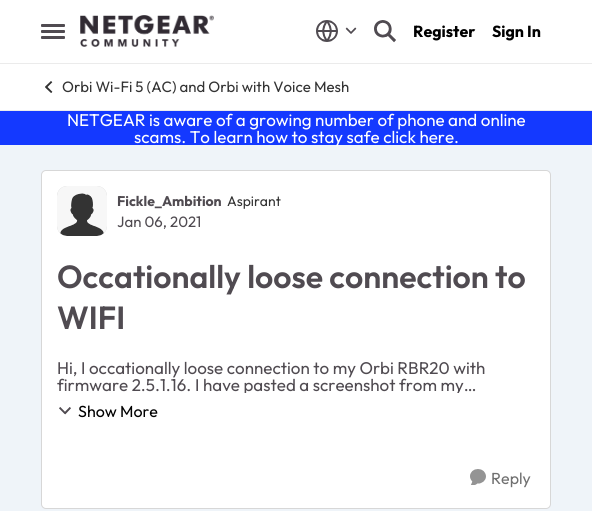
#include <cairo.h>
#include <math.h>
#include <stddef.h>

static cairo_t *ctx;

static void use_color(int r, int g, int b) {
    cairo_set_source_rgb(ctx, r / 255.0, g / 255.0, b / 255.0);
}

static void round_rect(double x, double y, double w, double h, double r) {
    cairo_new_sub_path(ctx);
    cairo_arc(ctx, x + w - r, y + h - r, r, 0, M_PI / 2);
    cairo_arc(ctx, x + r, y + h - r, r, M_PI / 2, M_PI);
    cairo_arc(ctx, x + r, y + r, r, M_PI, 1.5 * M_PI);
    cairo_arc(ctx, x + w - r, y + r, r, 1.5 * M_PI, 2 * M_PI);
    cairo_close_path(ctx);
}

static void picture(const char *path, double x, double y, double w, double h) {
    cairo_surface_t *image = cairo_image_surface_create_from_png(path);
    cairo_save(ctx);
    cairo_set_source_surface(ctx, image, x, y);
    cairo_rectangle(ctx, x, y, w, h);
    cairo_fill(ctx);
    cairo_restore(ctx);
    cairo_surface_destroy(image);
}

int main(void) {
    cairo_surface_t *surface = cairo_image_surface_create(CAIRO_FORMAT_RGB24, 592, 511);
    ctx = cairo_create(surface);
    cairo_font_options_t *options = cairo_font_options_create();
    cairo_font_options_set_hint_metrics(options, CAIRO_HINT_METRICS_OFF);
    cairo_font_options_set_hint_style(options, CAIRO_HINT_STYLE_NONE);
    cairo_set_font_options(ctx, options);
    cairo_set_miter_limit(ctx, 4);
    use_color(239, 244, 249);
    cairo_paint(ctx);
    use_color(255, 255, 255);
    cairo_rectangle(ctx, 0, 0, 592, 110);
    cairo_fill(ctx);
    use_color(235, 235, 235);
    cairo_rectangle(ctx, 0, 63, 592, 1);
    cairo_fill(ctx);
    use_color(80, 75, 81);
    round_rect(41, 24, 24, 3, 1);
    cairo_fill(ctx);
    round_rect(41, 30, 24, 3, 1);
    cairo_fill(ctx);
    round_rect(41, 36, 24, 3, 1);
    cairo_fill(ctx);
    picture("img1.png", 80, 15, 134, 32);
    picture("img2.png", 316, 20, 22, 22);
    picture("img3.png", 345, 27, 12, 7);
    picture("img4.png", 374, 20, 22, 23);
    cairo_select_font_face(ctx, "Outfit", CAIRO_FONT_SLANT_NORMAL, CAIRO_FONT_WEIGHT_BOLD);
    cairo_set_font_size(ctx, 16);
    use_color(0, 0, 0);
    cairo_move_to(ctx, 413, 37);
    cairo_show_text(ctx, "Register");
    cairo_move_to(ctx, 492, 37);
    cairo_show_text(ctx, "Sign In");
    use_color(235, 235, 235);
    cairo_rectangle(ctx, 0, 110, 592, 1);
    cairo_fill(ctx);
    picture("img5.png", 45, 81, 8, 12);
    cairo_select_font_face(ctx, "Outfit", CAIRO_FONT_SLANT_NORMAL, CAIRO_FONT_WEIGHT_NORMAL);
    cairo_set_font_size(ctx, 15);
    use_color(51, 51, 51);
    cairo_move_to(ctx, 62, 92);
    cairo_show_text(ctx, "Orbi Wi-Fi 5 (AC) and Orbi with Voice Mesh");
    use_color(20, 57, 255);
    cairo_rectangle(ctx, 0, 111, 592, 34);
    cairo_fill(ctx);
    cairo_set_font_size(ctx, 17);
    use_color(255, 255, 255);
    cairo_move_to(ctx, 67, 126);
    cairo_show_text(ctx, "NETGEAR is aware of a growing number of phone and online");
    cairo_move_to(ctx, 134, 143);
    cairo_show_text(ctx, "scams. To learn how to stay safe click here.");
    round_rect(41, 170, 510, 339, 5);
    cairo_fill(ctx);
    round_rect(41.5, 170.5, 509, 338, 4.5);
    cairo_set_source_rgba(ctx, 0, 0, 0, 0.16);
    cairo_set_line_width(ctx, 1);
    cairo_stroke(ctx);
    use_color(217, 217, 217);
    round_rect(57, 186, 50, 50, 10);
    cairo_fill(ctx);
    picture("img6.png", 57, 186, 50, 50);
    cairo_select_font_face(ctx, "Outfit", CAIRO_FONT_SLANT_NORMAL, CAIRO_FONT_WEIGHT_BOLD);
    cairo_set_font_size(ctx, 14);
    use_color(80, 75, 81);
    cairo_move_to(ctx, 117, 206);
    cairo_show_text(ctx, "Fickle_Ambition");
    cairo_select_font_face(ctx, "Outfit", CAIRO_FONT_SLANT_NORMAL, CAIRO_FONT_WEIGHT_NORMAL);
    use_color(51, 51, 51);
    cairo_move_to(ctx, 227, 206);
    cairo_show_text(ctx, "Aspirant");
    cairo_set_font_size(ctx, 15);
    use_color(80, 75, 81);
    cairo_move_to(ctx, 117, 227);
    cairo_show_text(ctx, "Jan 06, 2021");
    cairo_select_font_face(ctx, "Outfit SemiBold", CAIRO_FONT_SLANT_NORMAL, CAIRO_FONT_WEIGHT_NORMAL);
    cairo_set_font_size(ctx, 32);
    cairo_move_to(ctx, 57, 288);
    cairo_show_text(ctx, "Occationally loose connection to");
    cairo_move_to(ctx, 57, 329);
    cairo_show_text(ctx, "WIFI");
    cairo_select_font_face(ctx, "Outfit", CAIRO_FONT_SLANT_NORMAL, CAIRO_FONT_WEIGHT_NORMAL);
    cairo_set_font_size(ctx, 17);
    cairo_move_to(ctx, 57, 374);
    cairo_show_text(ctx, "Hi, I occationally loose connection to my Orbi RBR20 with");
    cairo_move_to(ctx, 57, 391);
    cairo_show_text(ctx, "firmware 2.5.1.16.");
    cairo_save(ctx);
    cairo_rectangle(ctx, 57, 359, 478, 34);
    cairo_clip(ctx);
    cairo_move_to(ctx, 195, 391);
    cairo_show_text(ctx, "I have pasted a screenshot from my…");
    cairo_restore(ctx);
    picture("img7.png", 59, 407, 12, 8);
    cairo_set_font_size(ctx, 16);
    use_color(0, 0, 0);
    cairo_move_to(ctx, 78, 417);
    cairo_show_text(ctx, "Show More");
    picture("img8.png", 470, 469, 16, 16);
    use_color(112, 112, 112);
    cairo_move_to(ctx, 491, 484);
    cairo_show_text(ctx, "Reply");
    cairo_surface_write_to_png(surface, "result.png");
    cairo_font_options_destroy(options);
    cairo_destroy(ctx);
    cairo_surface_destroy(surface);
    return 0;
}
